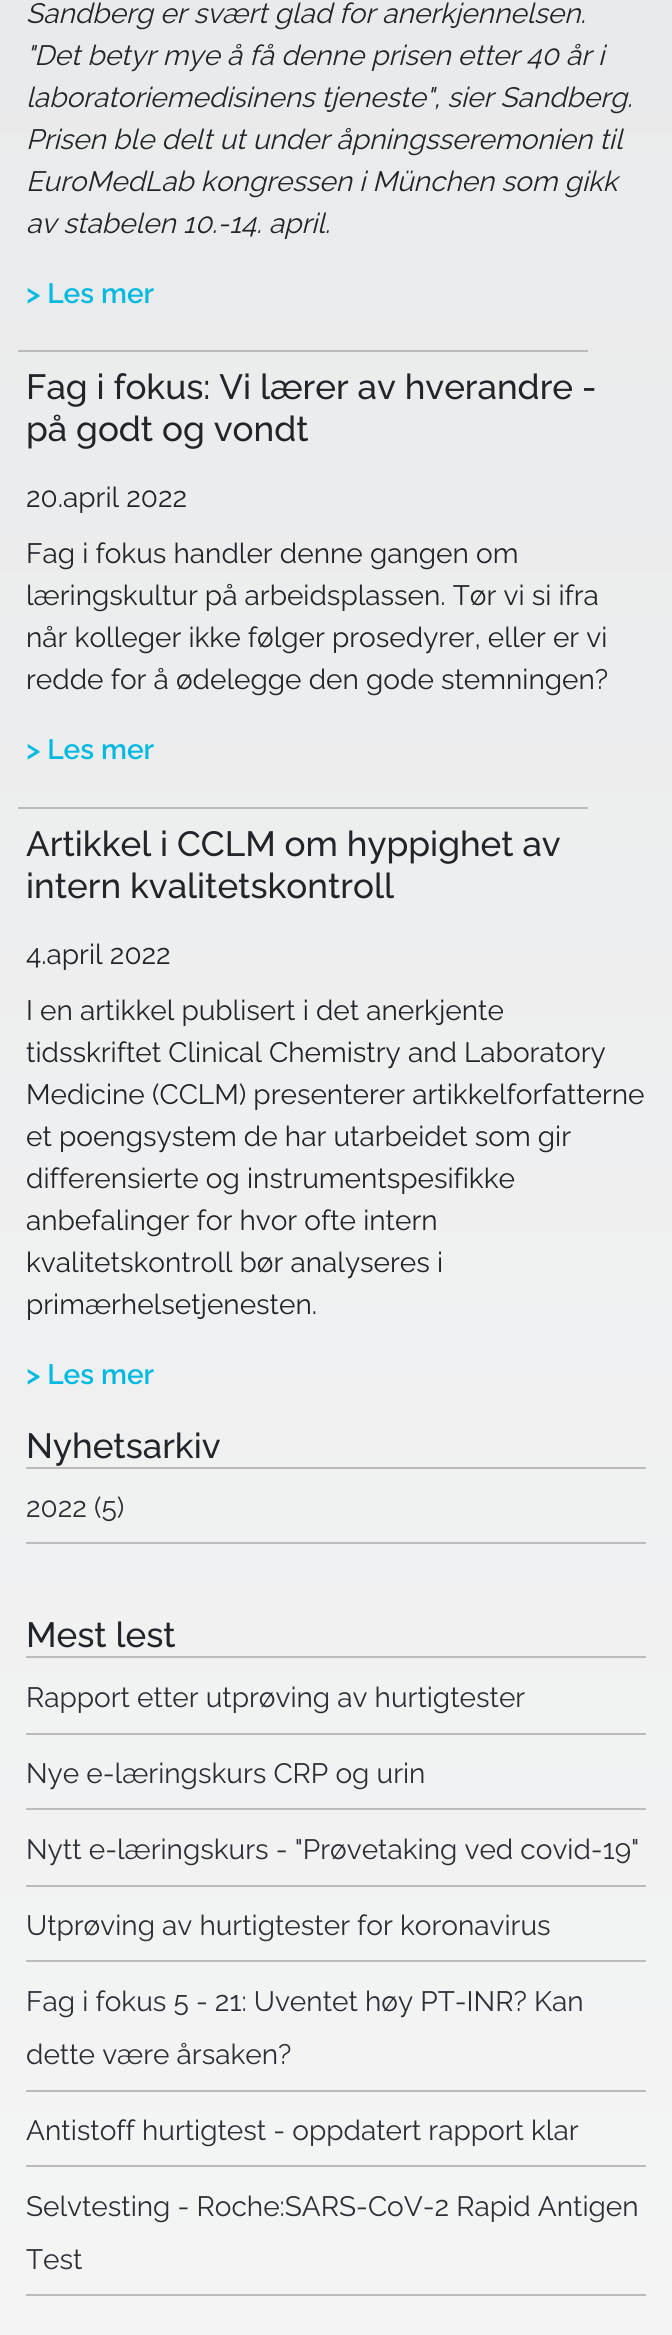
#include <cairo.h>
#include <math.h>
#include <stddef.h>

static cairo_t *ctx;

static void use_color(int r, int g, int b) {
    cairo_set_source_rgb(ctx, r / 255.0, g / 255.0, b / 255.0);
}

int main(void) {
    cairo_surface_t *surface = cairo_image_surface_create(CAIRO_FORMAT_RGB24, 672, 2335);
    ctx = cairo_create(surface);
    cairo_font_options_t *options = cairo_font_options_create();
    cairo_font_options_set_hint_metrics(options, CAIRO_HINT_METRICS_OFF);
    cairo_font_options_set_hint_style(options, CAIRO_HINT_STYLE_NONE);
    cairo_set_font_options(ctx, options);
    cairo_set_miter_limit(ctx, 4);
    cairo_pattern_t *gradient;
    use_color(255, 255, 255);
    cairo_paint(ctx);
    gradient = cairo_pattern_create_linear(336, -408, 336, 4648);
    cairo_pattern_add_color_stop_rgba(gradient, 0, 0.906, 0.91, 0.914, 1);
    cairo_pattern_add_color_stop_rgba(gradient, 1, 1, 1, 1, 1);
    cairo_set_source(ctx, gradient);
    cairo_pattern_destroy(gradient);
    cairo_rectangle(ctx, 0, 0, 672, 2335);
    cairo_fill(ctx);
    cairo_select_font_face(ctx, "Raleway", CAIRO_FONT_SLANT_ITALIC, CAIRO_FONT_WEIGHT_NORMAL);
    cairo_set_font_size(ctx, 28);
    use_color(33, 37, 41);
    cairo_move_to(ctx, 26, 23);
    cairo_show_text(ctx, "Sandberg er svært glad for anerkjennelsen.");
    cairo_move_to(ctx, 26, 65);
    cairo_show_text(ctx, "\"Det betyr mye å få denne prisen etter 40 år i");
    cairo_move_to(ctx, 26, 107);
    cairo_show_text(ctx, "laboratoriemedisinens tjeneste\", sier Sandberg.");
    cairo_move_to(ctx, 26, 149);
    cairo_show_text(ctx, "Prisen ble delt ut under åpningsseremonien til");
    cairo_move_to(ctx, 26, 191);
    cairo_show_text(ctx, "EuroMedLab kongressen i München som gikk");
    cairo_move_to(ctx, 26, 233);
    cairo_show_text(ctx, "av stabelen 10.-14. april.");
    cairo_select_font_face(ctx, "Raleway SemiBold", CAIRO_FONT_SLANT_NORMAL, CAIRO_FONT_WEIGHT_NORMAL);
    use_color(0, 185, 224);
    cairo_move_to(ctx, 26, 303);
    cairo_show_text(ctx, "> Les mer");
    use_color(188, 186, 186);
    cairo_rectangle(ctx, 18, 350, 570, 2);
    cairo_fill(ctx);
    cairo_select_font_face(ctx, "Raleway Medium", CAIRO_FONT_SLANT_NORMAL, CAIRO_FONT_WEIGHT_NORMAL);
    cairo_set_font_size(ctx, 35);
    use_color(33, 37, 41);
    cairo_move_to(ctx, 26, 399);
    cairo_show_text(ctx, "Fag i fokus: Vi lærer av hverandre -");
    cairo_move_to(ctx, 26, 441);
    cairo_show_text(ctx, "på godt og vondt");
    cairo_select_font_face(ctx, "Raleway", CAIRO_FONT_SLANT_NORMAL, CAIRO_FONT_WEIGHT_NORMAL);
    cairo_set_font_size(ctx, 28);
    cairo_move_to(ctx, 26, 507);
    cairo_show_text(ctx, "20.april 2022");
    cairo_move_to(ctx, 26, 563);
    cairo_show_text(ctx, "Fag i fokus handler denne gangen om");
    cairo_move_to(ctx, 26, 605);
    cairo_show_text(ctx, "læringskultur på arbeidsplassen. Tør vi si ifra");
    cairo_move_to(ctx, 26, 647);
    cairo_show_text(ctx, "når kolleger ikke følger prosedyrer, eller er vi");
    cairo_move_to(ctx, 26, 689);
    cairo_show_text(ctx, "redde for å ødelegge den gode stemningen?");
    cairo_select_font_face(ctx, "Raleway SemiBold", CAIRO_FONT_SLANT_NORMAL, CAIRO_FONT_WEIGHT_NORMAL);
    use_color(0, 185, 224);
    cairo_move_to(ctx, 26, 759);
    cairo_show_text(ctx, "> Les mer");
    use_color(188, 186, 186);
    cairo_rectangle(ctx, 18, 807, 570, 2);
    cairo_fill(ctx);
    cairo_select_font_face(ctx, "Raleway Medium", CAIRO_FONT_SLANT_NORMAL, CAIRO_FONT_WEIGHT_NORMAL);
    cairo_set_font_size(ctx, 35);
    use_color(33, 37, 41);
    cairo_move_to(ctx, 26, 856);
    cairo_show_text(ctx, "Artikkel i CCLM om hyppighet av");
    cairo_move_to(ctx, 26, 898);
    cairo_show_text(ctx, "intern kvalitetskontroll");
    cairo_select_font_face(ctx, "Raleway", CAIRO_FONT_SLANT_NORMAL, CAIRO_FONT_WEIGHT_NORMAL);
    cairo_set_font_size(ctx, 28);
    cairo_move_to(ctx, 26, 964);
    cairo_show_text(ctx, "4.april 2022");
    cairo_move_to(ctx, 26, 1020);
    cairo_show_text(ctx, "I en artikkel publisert i det anerkjente");
    cairo_move_to(ctx, 26, 1062);
    cairo_show_text(ctx, "tidsskriftet Clinical Chemistry and Laboratory");
    cairo_move_to(ctx, 26, 1104);
    cairo_show_text(ctx, "Medicine (CCLM) presenterer artikkelforfatterne");
    cairo_move_to(ctx, 26, 1146);
    cairo_show_text(ctx, "et poengsystem de har utarbeidet som gir");
    cairo_move_to(ctx, 26, 1188);
    cairo_show_text(ctx, "differensierte og instrumentspesifikke");
    cairo_move_to(ctx, 26, 1230);
    cairo_show_text(ctx, "anbefalinger for hvor ofte intern");
    cairo_move_to(ctx, 26, 1272);
    cairo_show_text(ctx, "kvalitetskontroll bør analyseres i");
    cairo_move_to(ctx, 26, 1314);
    cairo_show_text(ctx, "primærhelsetjenesten.");
    cairo_select_font_face(ctx, "Raleway SemiBold", CAIRO_FONT_SLANT_NORMAL, CAIRO_FONT_WEIGHT_NORMAL);
    use_color(0, 185, 224);
    cairo_move_to(ctx, 26, 1384);
    cairo_show_text(ctx, "> Les mer");
    use_color(188, 186, 186);
    cairo_rectangle(ctx, 26, 1467, 620, 2);
    cairo_fill(ctx);
    cairo_select_font_face(ctx, "Raleway Medium", CAIRO_FONT_SLANT_NORMAL, CAIRO_FONT_WEIGHT_NORMAL);
    cairo_set_font_size(ctx, 35);
    use_color(33, 37, 41);
    cairo_move_to(ctx, 26, 1458);
    cairo_show_text(ctx, "Nyhetsarkiv");
    use_color(188, 186, 186);
    cairo_rectangle(ctx, 26, 1542, 620, 2);
    cairo_fill(ctx);
    cairo_select_font_face(ctx, "Raleway", CAIRO_FONT_SLANT_NORMAL, CAIRO_FONT_WEIGHT_NORMAL);
    cairo_set_font_size(ctx, 28);
    use_color(43, 46, 52);
    cairo_move_to(ctx, 26, 1517);
    cairo_show_text(ctx, "2022 (5)");
    use_color(188, 186, 186);
    cairo_rectangle(ctx, 26, 1656, 620, 2);
    cairo_fill(ctx);
    cairo_select_font_face(ctx, "Raleway Medium", CAIRO_FONT_SLANT_NORMAL, CAIRO_FONT_WEIGHT_NORMAL);
    cairo_set_font_size(ctx, 35);
    use_color(33, 37, 41);
    cairo_move_to(ctx, 26, 1647);
    cairo_show_text(ctx, "Mest lest");
    use_color(188, 186, 186);
    cairo_rectangle(ctx, 26, 1733, 620, 2);
    cairo_fill(ctx);
    cairo_select_font_face(ctx, "Raleway", CAIRO_FONT_SLANT_NORMAL, CAIRO_FONT_WEIGHT_NORMAL);
    cairo_set_font_size(ctx, 28);
    use_color(43, 46, 52);
    cairo_move_to(ctx, 26, 1707);
    cairo_show_text(ctx, "Rapport etter utprøving av hurtigtester");
    use_color(188, 186, 186);
    cairo_rectangle(ctx, 26, 1808, 620, 2);
    cairo_fill(ctx);
    use_color(43, 46, 52);
    cairo_move_to(ctx, 26, 1783);
    cairo_show_text(ctx, "Nye e-læringskurs CRP og urin");
    use_color(188, 186, 186);
    cairo_rectangle(ctx, 26, 1885, 620, 2);
    cairo_fill(ctx);
    use_color(43, 46, 52);
    cairo_move_to(ctx, 26, 1859);
    cairo_show_text(ctx, "Nytt e-læringskurs - \"Prøvetaking ved covid-19\"");
    use_color(188, 186, 186);
    cairo_rectangle(ctx, 26, 1960, 620, 2);
    cairo_fill(ctx);
    use_color(43, 46, 52);
    cairo_move_to(ctx, 26, 1935);
    cairo_show_text(ctx, "Utprøving av hurtigtester for koronavirus");
    use_color(188, 186, 186);
    cairo_rectangle(ctx, 26, 2090, 620, 2);
    cairo_fill(ctx);
    use_color(43, 46, 52);
    cairo_move_to(ctx, 26, 2011);
    cairo_show_text(ctx, "Fag i fokus 5 - 21: Uventet høy PT-INR? Kan");
    cairo_move_to(ctx, 26, 2064);
    cairo_show_text(ctx, "dette være årsaken?");
    use_color(188, 186, 186);
    cairo_rectangle(ctx, 26, 2165, 620, 2);
    cairo_fill(ctx);
    use_color(43, 46, 52);
    cairo_move_to(ctx, 26, 2140);
    cairo_show_text(ctx, "Antistoff hurtigtest - oppdatert rapport klar");
    use_color(188, 186, 186);
    cairo_rectangle(ctx, 26, 2294, 620, 2);
    cairo_fill(ctx);
    use_color(43, 46, 52);
    cairo_move_to(ctx, 26, 2216);
    cairo_show_text(ctx, "Selvtesting - Roche:SARS-CoV-2 Rapid Antigen");
    cairo_move_to(ctx, 26, 2269);
    cairo_show_text(ctx, "Test");
    cairo_surface_write_to_png(surface, "result.png");
    cairo_font_options_destroy(options);
    cairo_destroy(ctx);
    cairo_surface_destroy(surface);
    return 0;
}
